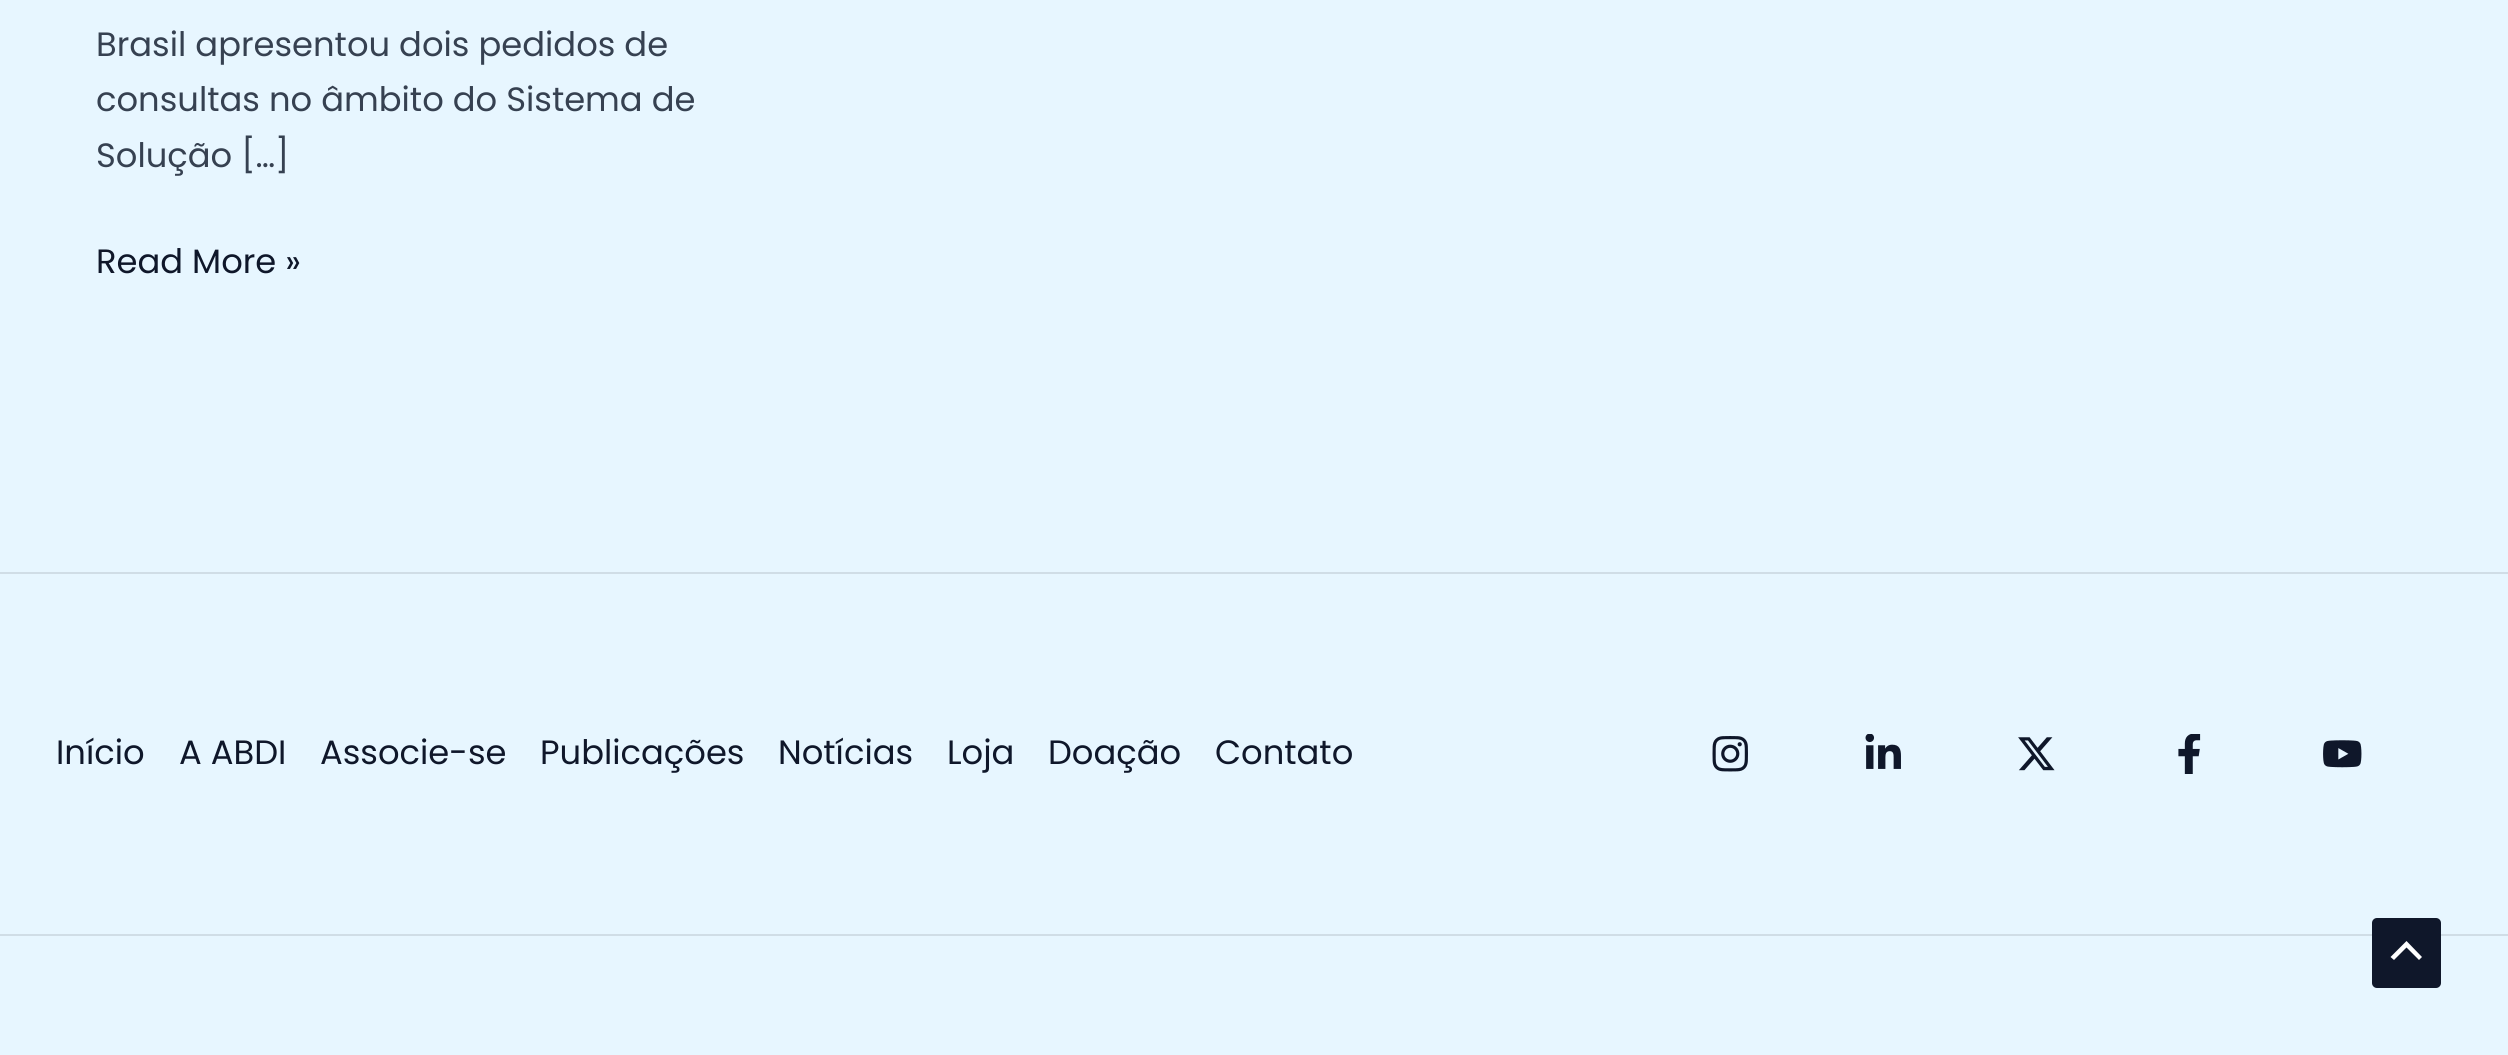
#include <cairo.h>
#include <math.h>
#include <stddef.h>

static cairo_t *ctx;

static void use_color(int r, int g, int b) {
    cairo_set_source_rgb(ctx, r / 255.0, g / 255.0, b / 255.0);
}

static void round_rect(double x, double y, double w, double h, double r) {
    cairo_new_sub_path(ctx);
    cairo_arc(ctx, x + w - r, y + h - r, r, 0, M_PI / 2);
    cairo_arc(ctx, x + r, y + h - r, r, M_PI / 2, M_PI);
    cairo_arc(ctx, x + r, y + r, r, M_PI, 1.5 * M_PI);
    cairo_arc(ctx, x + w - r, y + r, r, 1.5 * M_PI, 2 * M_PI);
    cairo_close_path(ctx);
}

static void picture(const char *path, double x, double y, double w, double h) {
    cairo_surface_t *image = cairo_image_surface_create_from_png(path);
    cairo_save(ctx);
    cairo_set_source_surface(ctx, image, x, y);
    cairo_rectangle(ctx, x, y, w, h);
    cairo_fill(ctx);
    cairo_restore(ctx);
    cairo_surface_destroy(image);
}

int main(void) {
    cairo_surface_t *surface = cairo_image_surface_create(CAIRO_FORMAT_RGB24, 2508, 1055);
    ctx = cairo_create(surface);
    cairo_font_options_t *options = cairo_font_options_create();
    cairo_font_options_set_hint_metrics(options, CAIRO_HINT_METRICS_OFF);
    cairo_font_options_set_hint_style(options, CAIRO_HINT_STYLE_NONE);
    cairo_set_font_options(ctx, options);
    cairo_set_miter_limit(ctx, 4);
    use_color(231, 246, 255);
    cairo_paint(ctx);
    cairo_select_font_face(ctx, "Poppins", CAIRO_FONT_SLANT_NORMAL, CAIRO_FONT_WEIGHT_NORMAL);
    cairo_set_font_size(ctx, 33.75);
    use_color(54, 65, 81);
    cairo_move_to(ctx, 96, 56);
    cairo_show_text(ctx, "Brasil apresentou dois pedidos de");
    cairo_move_to(ctx, 96, 111);
    cairo_show_text(ctx, "consultas no âmbito do Sistema de");
    cairo_move_to(ctx, 96, 167);
    cairo_show_text(ctx, "Solução […]");
    use_color(15, 23, 42);
    cairo_move_to(ctx, 96, 273);
    cairo_show_text(ctx, "Read More »");
    use_color(208, 221, 230);
    cairo_rectangle(ctx, 0, 572, 2508, 2);
    cairo_fill(ctx);
    use_color(15, 23, 42);
    cairo_move_to(ctx, 56, 764);
    cairo_show_text(ctx, "Início");
    cairo_move_to(ctx, 179, 764);
    cairo_show_text(ctx, "A ABDI");
    cairo_move_to(ctx, 320, 764);
    cairo_show_text(ctx, "Associe-se");
    cairo_move_to(ctx, 540, 764);
    cairo_show_text(ctx, "Publicações");
    cairo_move_to(ctx, 778, 764);
    cairo_show_text(ctx, "Notícias");
    cairo_move_to(ctx, 947, 764);
    cairo_show_text(ctx, "Loja");
    cairo_move_to(ctx, 1048, 764);
    cairo_show_text(ctx, "Doação");
    cairo_move_to(ctx, 1215, 764);
    cairo_show_text(ctx, "Contato");
    picture("img1.png", 1712, 736, 36, 36);
    picture("img2.png", 1865, 734, 36, 35);
    picture("img3.png", 2018, 737, 37, 34);
    picture("img4.png", 2178, 734, 23, 40);
    picture("img5.png", 2323, 740, 39, 28);
    use_color(208, 221, 230);
    cairo_rectangle(ctx, 0, 934, 2508, 2);
    cairo_fill(ctx);
    use_color(15, 23, 42);
    round_rect(2372, 918, 69, 70, 5);
    cairo_fill(ctx);
    use_color(255, 255, 255);
    cairo_new_path(ctx);
    cairo_move_to(ctx, 2422, 957);
    cairo_line_to(ctx, 2406.5, 941);
    cairo_line_to(ctx, 2390.5, 957);
    cairo_line_to(ctx, 2394, 960);
    cairo_line_to(ctx, 2406.5, 947.5);
    cairo_line_to(ctx, 2419, 960);
    cairo_close_path(ctx);
    cairo_fill(ctx);
    cairo_surface_write_to_png(surface, "result.png");
    cairo_font_options_destroy(options);
    cairo_destroy(ctx);
    cairo_surface_destroy(surface);
    return 0;
}
